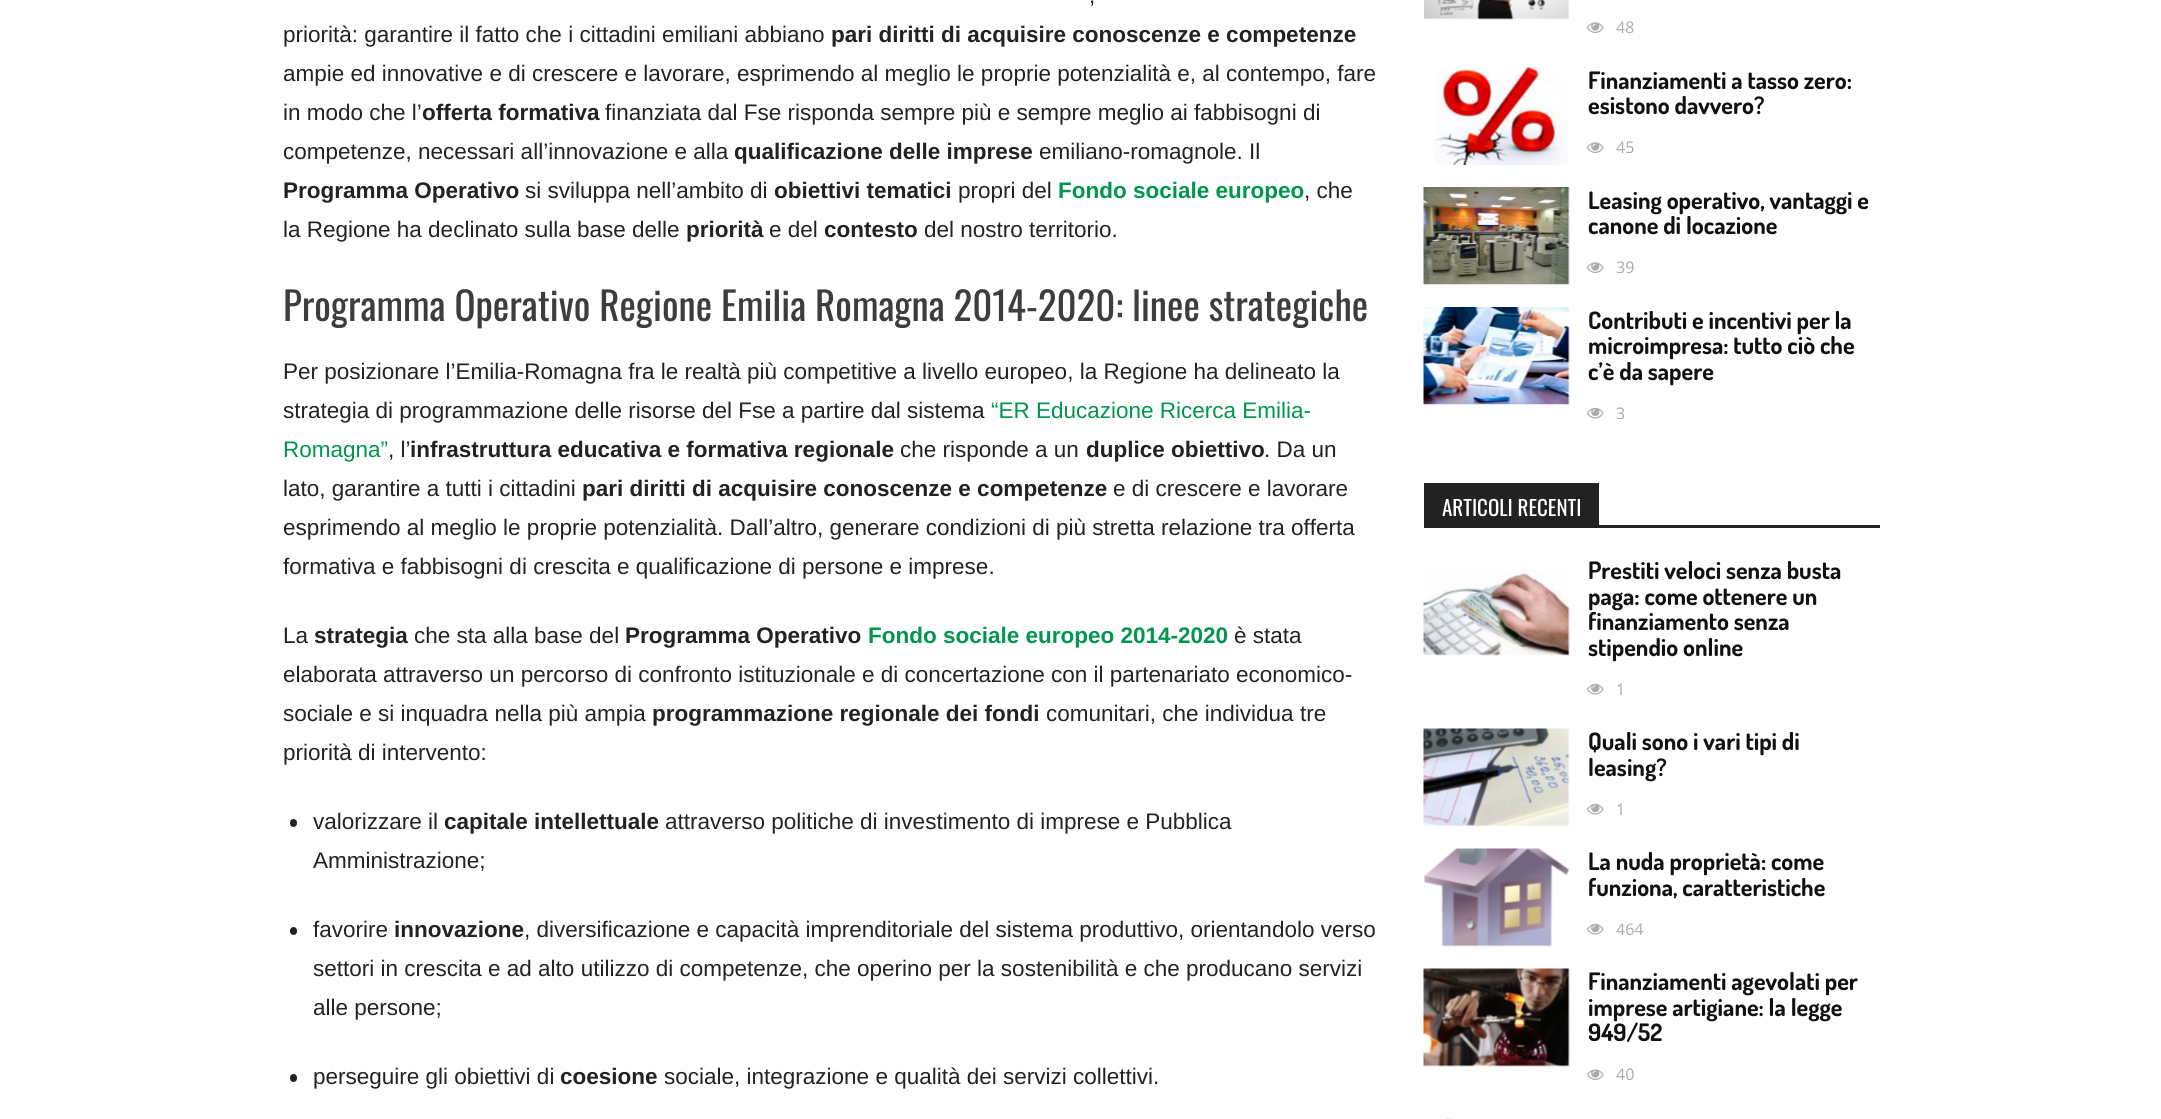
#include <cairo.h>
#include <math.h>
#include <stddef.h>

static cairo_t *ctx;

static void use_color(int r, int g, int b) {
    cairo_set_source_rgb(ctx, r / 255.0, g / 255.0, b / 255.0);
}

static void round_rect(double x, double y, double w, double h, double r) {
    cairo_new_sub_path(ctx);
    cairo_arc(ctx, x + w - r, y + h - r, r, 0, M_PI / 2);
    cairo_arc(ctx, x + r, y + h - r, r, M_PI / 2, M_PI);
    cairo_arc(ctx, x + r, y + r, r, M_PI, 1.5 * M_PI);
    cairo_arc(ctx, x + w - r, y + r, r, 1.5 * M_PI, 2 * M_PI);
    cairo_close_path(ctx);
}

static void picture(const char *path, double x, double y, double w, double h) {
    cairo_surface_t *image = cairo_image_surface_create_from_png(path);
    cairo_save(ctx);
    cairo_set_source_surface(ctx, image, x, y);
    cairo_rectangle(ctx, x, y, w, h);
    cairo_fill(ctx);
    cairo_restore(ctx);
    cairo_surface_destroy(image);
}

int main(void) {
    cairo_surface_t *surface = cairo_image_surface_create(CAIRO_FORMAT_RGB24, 2161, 1119);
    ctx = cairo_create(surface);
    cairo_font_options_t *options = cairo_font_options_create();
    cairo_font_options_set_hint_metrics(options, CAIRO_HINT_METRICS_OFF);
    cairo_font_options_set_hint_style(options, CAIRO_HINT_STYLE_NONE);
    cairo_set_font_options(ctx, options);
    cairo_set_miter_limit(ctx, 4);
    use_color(255, 255, 255);
    cairo_paint(ctx);
    cairo_select_font_face(ctx, "Liberation Sans", CAIRO_FONT_SLANT_NORMAL, CAIRO_FONT_WEIGHT_NORMAL);
    cairo_set_font_size(ctx, 22.5);
    use_color(34, 34, 34);
    cairo_move_to(ctx, 1089, 3);
    cairo_show_text(ctx, ",");
    cairo_move_to(ctx, 283, 42);
    cairo_show_text(ctx, "priorità: garantire il fatto che i cittadini emiliani abbiano");
    cairo_select_font_face(ctx, "Liberation Sans", CAIRO_FONT_SLANT_NORMAL, CAIRO_FONT_WEIGHT_BOLD);
    cairo_move_to(ctx, 831, 42);
    cairo_show_text(ctx, "pari diritti di acquisire conoscenze e competenze");
    cairo_select_font_face(ctx, "Liberation Sans", CAIRO_FONT_SLANT_NORMAL, CAIRO_FONT_WEIGHT_NORMAL);
    cairo_move_to(ctx, 283, 81);
    cairo_show_text(ctx, "ampie ed innovative e di crescere e lavorare, esprimendo al meglio le proprie potenzialità e, al contempo, fare");
    cairo_move_to(ctx, 283, 120);
    cairo_show_text(ctx, "in modo che l’");
    cairo_select_font_face(ctx, "Liberation Sans", CAIRO_FONT_SLANT_NORMAL, CAIRO_FONT_WEIGHT_BOLD);
    cairo_move_to(ctx, 422, 120);
    cairo_show_text(ctx, "offerta formativa");
    cairo_select_font_face(ctx, "Liberation Sans", CAIRO_FONT_SLANT_NORMAL, CAIRO_FONT_WEIGHT_NORMAL);
    cairo_move_to(ctx, 605, 120);
    cairo_show_text(ctx, "finanziata dal Fse risponda sempre più e sempre meglio ai fabbisogni di");
    cairo_move_to(ctx, 283, 159);
    cairo_show_text(ctx, "competenze, necessari all’innovazione e alla");
    cairo_select_font_face(ctx, "Liberation Sans", CAIRO_FONT_SLANT_NORMAL, CAIRO_FONT_WEIGHT_BOLD);
    cairo_move_to(ctx, 734, 159);
    cairo_show_text(ctx, "qualificazione delle imprese");
    cairo_select_font_face(ctx, "Liberation Sans", CAIRO_FONT_SLANT_NORMAL, CAIRO_FONT_WEIGHT_NORMAL);
    cairo_move_to(ctx, 1039, 159);
    cairo_show_text(ctx, "emiliano-romagnole. Il");
    cairo_select_font_face(ctx, "Liberation Sans", CAIRO_FONT_SLANT_NORMAL, CAIRO_FONT_WEIGHT_BOLD);
    cairo_move_to(ctx, 283, 198);
    cairo_show_text(ctx, "Programma Operativo");
    cairo_select_font_face(ctx, "Liberation Sans", CAIRO_FONT_SLANT_NORMAL, CAIRO_FONT_WEIGHT_NORMAL);
    cairo_move_to(ctx, 525, 198);
    cairo_show_text(ctx, "si sviluppa nell’ambito di");
    cairo_select_font_face(ctx, "Liberation Sans", CAIRO_FONT_SLANT_NORMAL, CAIRO_FONT_WEIGHT_BOLD);
    cairo_move_to(ctx, 774, 198);
    cairo_show_text(ctx, "obiettivi tematici");
    cairo_select_font_face(ctx, "Liberation Sans", CAIRO_FONT_SLANT_NORMAL, CAIRO_FONT_WEIGHT_NORMAL);
    cairo_move_to(ctx, 958, 198);
    cairo_show_text(ctx, "propri del");
    cairo_select_font_face(ctx, "Liberation Sans", CAIRO_FONT_SLANT_NORMAL, CAIRO_FONT_WEIGHT_BOLD);
    use_color(0, 150, 76);
    cairo_move_to(ctx, 1058, 198);
    cairo_show_text(ctx, "Fondo sociale europeo");
    cairo_select_font_face(ctx, "Liberation Sans", CAIRO_FONT_SLANT_NORMAL, CAIRO_FONT_WEIGHT_NORMAL);
    use_color(34, 34, 34);
    cairo_move_to(ctx, 1304, 198);
    cairo_show_text(ctx, ", che");
    cairo_move_to(ctx, 283, 237);
    cairo_show_text(ctx, "la Regione ha declinato sulla base delle");
    cairo_select_font_face(ctx, "Liberation Sans", CAIRO_FONT_SLANT_NORMAL, CAIRO_FONT_WEIGHT_BOLD);
    cairo_move_to(ctx, 686, 237);
    cairo_show_text(ctx, "priorità");
    cairo_select_font_face(ctx, "Liberation Sans", CAIRO_FONT_SLANT_NORMAL, CAIRO_FONT_WEIGHT_NORMAL);
    cairo_move_to(ctx, 769, 237);
    cairo_show_text(ctx, "e del");
    cairo_select_font_face(ctx, "Liberation Sans", CAIRO_FONT_SLANT_NORMAL, CAIRO_FONT_WEIGHT_BOLD);
    cairo_move_to(ctx, 824, 237);
    cairo_show_text(ctx, "contesto");
    cairo_select_font_face(ctx, "Liberation Sans", CAIRO_FONT_SLANT_NORMAL, CAIRO_FONT_WEIGHT_NORMAL);
    cairo_move_to(ctx, 924, 237);
    cairo_show_text(ctx, "del nostro territorio.");
    cairo_select_font_face(ctx, "Oswald", CAIRO_FONT_SLANT_NORMAL, CAIRO_FONT_WEIGHT_NORMAL);
    cairo_set_font_size(ctx, 39);
    use_color(61, 61, 61);
    cairo_move_to(ctx, 283, 321);
    cairo_show_text(ctx, "Programma Operativo Regione Emilia Romagna 2014-2020: linee strategiche");
    cairo_select_font_face(ctx, "Liberation Sans", CAIRO_FONT_SLANT_NORMAL, CAIRO_FONT_WEIGHT_NORMAL);
    cairo_set_font_size(ctx, 22.5);
    use_color(34, 34, 34);
    cairo_move_to(ctx, 283, 379);
    cairo_show_text(ctx, "Per posizionare l’Emilia-Romagna fra le realtà più competitive a livello europeo, la Regione ha delineato la");
    cairo_move_to(ctx, 283, 418);
    cairo_show_text(ctx, "strategia di programmazione delle risorse del Fse a partire dal sistema");
    use_color(0, 150, 76);
    cairo_move_to(ctx, 991, 418);
    cairo_show_text(ctx, "“ER Educazione Ricerca Emilia-");
    cairo_move_to(ctx, 283, 457);
    cairo_show_text(ctx, "Romagna”");
    use_color(34, 34, 34);
    cairo_move_to(ctx, 388, 457);
    cairo_show_text(ctx, ", l’");
    cairo_select_font_face(ctx, "Liberation Sans", CAIRO_FONT_SLANT_NORMAL, CAIRO_FONT_WEIGHT_BOLD);
    cairo_move_to(ctx, 410, 457);
    cairo_show_text(ctx, "infrastruttura educativa e formativa regionale");
    cairo_select_font_face(ctx, "Liberation Sans", CAIRO_FONT_SLANT_NORMAL, CAIRO_FONT_WEIGHT_NORMAL);
    cairo_move_to(ctx, 900, 457);
    cairo_show_text(ctx, "che risponde a un");
    cairo_select_font_face(ctx, "Liberation Sans", CAIRO_FONT_SLANT_NORMAL, CAIRO_FONT_WEIGHT_BOLD);
    cairo_move_to(ctx, 1086, 457);
    cairo_show_text(ctx, "duplice obiettivo");
    cairo_select_font_face(ctx, "Liberation Sans", CAIRO_FONT_SLANT_NORMAL, CAIRO_FONT_WEIGHT_NORMAL);
    cairo_move_to(ctx, 1264, 457);
    cairo_show_text(ctx, ". Da un");
    cairo_move_to(ctx, 283, 496);
    cairo_show_text(ctx, "lato, garantire a tutti i cittadini");
    cairo_select_font_face(ctx, "Liberation Sans", CAIRO_FONT_SLANT_NORMAL, CAIRO_FONT_WEIGHT_BOLD);
    cairo_move_to(ctx, 582, 496);
    cairo_show_text(ctx, "pari diritti di acquisire conoscenze e competenze");
    cairo_select_font_face(ctx, "Liberation Sans", CAIRO_FONT_SLANT_NORMAL, CAIRO_FONT_WEIGHT_NORMAL);
    cairo_move_to(ctx, 1113, 496);
    cairo_show_text(ctx, "e di crescere e lavorare");
    cairo_move_to(ctx, 283, 535);
    cairo_show_text(ctx, "esprimendo al meglio le proprie potenzialità. Dall’altro, generare condizioni di più stretta relazione tra offerta");
    cairo_move_to(ctx, 283, 574);
    cairo_show_text(ctx, "formativa e fabbisogni di crescita e qualificazione di persone e imprese.");
    cairo_move_to(ctx, 283, 643);
    cairo_show_text(ctx, "La");
    cairo_select_font_face(ctx, "Liberation Sans", CAIRO_FONT_SLANT_NORMAL, CAIRO_FONT_WEIGHT_BOLD);
    cairo_move_to(ctx, 314, 643);
    cairo_show_text(ctx, "strategia");
    cairo_select_font_face(ctx, "Liberation Sans", CAIRO_FONT_SLANT_NORMAL, CAIRO_FONT_WEIGHT_NORMAL);
    cairo_move_to(ctx, 414, 643);
    cairo_show_text(ctx, "che sta alla base del");
    cairo_select_font_face(ctx, "Liberation Sans", CAIRO_FONT_SLANT_NORMAL, CAIRO_FONT_WEIGHT_BOLD);
    cairo_move_to(ctx, 625, 643);
    cairo_show_text(ctx, "Programma Operativo");
    use_color(0, 150, 76);
    cairo_move_to(ctx, 868, 643);
    cairo_show_text(ctx, "Fondo sociale europeo 2014-2020");
    cairo_select_font_face(ctx, "Liberation Sans", CAIRO_FONT_SLANT_NORMAL, CAIRO_FONT_WEIGHT_NORMAL);
    use_color(34, 34, 34);
    cairo_move_to(ctx, 1234, 643);
    cairo_show_text(ctx, "è stata");
    cairo_move_to(ctx, 283, 682);
    cairo_show_text(ctx, "elaborata attraverso un percorso di confronto istituzionale e di concertazione con il partenariato economico-");
    cairo_move_to(ctx, 283, 721);
    cairo_show_text(ctx, "sociale e si inquadra nella più ampia");
    cairo_select_font_face(ctx, "Liberation Sans", CAIRO_FONT_SLANT_NORMAL, CAIRO_FONT_WEIGHT_BOLD);
    cairo_move_to(ctx, 652, 721);
    cairo_show_text(ctx, "programmazione regionale dei fondi");
    cairo_select_font_face(ctx, "Liberation Sans", CAIRO_FONT_SLANT_NORMAL, CAIRO_FONT_WEIGHT_NORMAL);
    cairo_move_to(ctx, 1046, 721);
    cairo_show_text(ctx, "comunitari, che individua tre");
    cairo_move_to(ctx, 283, 760);
    cairo_show_text(ctx, "priorità di intervento:");
    round_rect(290, 819, 7, 8, 3.5);
    cairo_fill(ctx);
    cairo_move_to(ctx, 313, 829);
    cairo_show_text(ctx, "valorizzare il");
    cairo_select_font_face(ctx, "Liberation Sans", CAIRO_FONT_SLANT_NORMAL, CAIRO_FONT_WEIGHT_BOLD);
    cairo_move_to(ctx, 444, 829);
    cairo_show_text(ctx, "capitale intellettuale");
    cairo_select_font_face(ctx, "Liberation Sans", CAIRO_FONT_SLANT_NORMAL, CAIRO_FONT_WEIGHT_NORMAL);
    cairo_move_to(ctx, 665, 829);
    cairo_show_text(ctx, "attraverso politiche di investimento di imprese e Pubblica");
    cairo_move_to(ctx, 313, 868);
    cairo_show_text(ctx, "Amministrazione;");
    round_rect(290, 927, 7, 8, 3.5);
    cairo_fill(ctx);
    cairo_move_to(ctx, 313, 937);
    cairo_show_text(ctx, "favorire");
    cairo_select_font_face(ctx, "Liberation Sans", CAIRO_FONT_SLANT_NORMAL, CAIRO_FONT_WEIGHT_BOLD);
    cairo_move_to(ctx, 394, 937);
    cairo_show_text(ctx, "innovazione");
    cairo_select_font_face(ctx, "Liberation Sans", CAIRO_FONT_SLANT_NORMAL, CAIRO_FONT_WEIGHT_NORMAL);
    cairo_move_to(ctx, 524, 937);
    cairo_show_text(ctx, ", diversificazione e capacità imprenditoriale del sistema produttivo, orientandolo verso");
    cairo_move_to(ctx, 313, 976);
    cairo_show_text(ctx, "settori in crescita e ad alto utilizzo di competenze, che operino per la sostenibilità e che producano servizi");
    cairo_move_to(ctx, 313, 1015);
    cairo_show_text(ctx, "alle persone;");
    round_rect(290, 1074, 7, 8, 3.5);
    cairo_fill(ctx);
    cairo_move_to(ctx, 313, 1084);
    cairo_show_text(ctx, "perseguire gli obiettivi di");
    cairo_select_font_face(ctx, "Liberation Sans", CAIRO_FONT_SLANT_NORMAL, CAIRO_FONT_WEIGHT_BOLD);
    cairo_move_to(ctx, 560, 1084);
    cairo_show_text(ctx, "coesione");
    cairo_select_font_face(ctx, "Liberation Sans", CAIRO_FONT_SLANT_NORMAL, CAIRO_FONT_WEIGHT_NORMAL);
    cairo_move_to(ctx, 664, 1084);
    cairo_show_text(ctx, "sociale, integrazione e qualità dei servizi collettivi.");
    picture("img1.png", 1424, 0, 146, 20);
    picture("img2.png", 1587, 22, 17, 11);
    cairo_select_font_face(ctx, "Open Sans", CAIRO_FONT_SLANT_NORMAL, CAIRO_FONT_WEIGHT_NORMAL);
    cairo_set_font_size(ctx, 16);
    use_color(170, 170, 170);
    cairo_move_to(ctx, 1616, 33);
    cairo_show_text(ctx, "48");
    picture("img3.png", 1435, 66, 133, 99);
    cairo_select_font_face(ctx, "Dosis", CAIRO_FONT_SLANT_NORMAL, CAIRO_FONT_WEIGHT_BOLD);
    cairo_set_font_size(ctx, 24);
    use_color(17, 17, 17);
    cairo_move_to(ctx, 1588, 89);
    cairo_show_text(ctx, "Finanziamenti a tasso zero:");
    cairo_move_to(ctx, 1588, 114);
    cairo_show_text(ctx, "esistono davvero?");
    picture("img2.png", 1587, 142, 17, 11);
    cairo_select_font_face(ctx, "Open Sans", CAIRO_FONT_SLANT_NORMAL, CAIRO_FONT_WEIGHT_NORMAL);
    cairo_set_font_size(ctx, 16);
    use_color(170, 170, 170);
    cairo_move_to(ctx, 1616, 153);
    cairo_show_text(ctx, "45");
    picture("img4.png", 1423, 187, 147, 98);
    cairo_select_font_face(ctx, "Dosis", CAIRO_FONT_SLANT_NORMAL, CAIRO_FONT_WEIGHT_BOLD);
    cairo_set_font_size(ctx, 24);
    use_color(17, 17, 17);
    cairo_move_to(ctx, 1588, 209);
    cairo_show_text(ctx, "Leasing operativo, vantaggi e");
    cairo_move_to(ctx, 1588, 234);
    cairo_show_text(ctx, "canone di locazione");
    picture("img2.png", 1587, 262, 17, 11);
    cairo_select_font_face(ctx, "Open Sans", CAIRO_FONT_SLANT_NORMAL, CAIRO_FONT_WEIGHT_NORMAL);
    cairo_set_font_size(ctx, 16);
    use_color(170, 170, 170);
    cairo_move_to(ctx, 1616, 273);
    cairo_show_text(ctx, "39");
    picture("img5.png", 1423, 307, 147, 98);
    cairo_select_font_face(ctx, "Dosis", CAIRO_FONT_SLANT_NORMAL, CAIRO_FONT_WEIGHT_BOLD);
    cairo_set_font_size(ctx, 24);
    use_color(17, 17, 17);
    cairo_move_to(ctx, 1588, 329);
    cairo_show_text(ctx, "Contributi e incentivi per la");
    cairo_move_to(ctx, 1588, 354);
    cairo_show_text(ctx, "microimpresa: tutto ciò che");
    cairo_move_to(ctx, 1588, 380);
    cairo_show_text(ctx, "c’è da sapere");
    picture("img6.png", 1587, 407, 17, 12);
    cairo_select_font_face(ctx, "Open Sans", CAIRO_FONT_SLANT_NORMAL, CAIRO_FONT_WEIGHT_NORMAL);
    cairo_set_font_size(ctx, 16);
    use_color(170, 170, 170);
    cairo_move_to(ctx, 1616, 419);
    cairo_show_text(ctx, "3");
    use_color(34, 34, 34);
    cairo_rectangle(ctx, 1424, 525, 456, 3);
    cairo_fill(ctx);
    cairo_rectangle(ctx, 1424, 483, 175, 42);
    cairo_fill(ctx);
    cairo_select_font_face(ctx, "Oswald", CAIRO_FONT_SLANT_NORMAL, CAIRO_FONT_WEIGHT_NORMAL);
    cairo_set_font_size(ctx, 21);
    use_color(255, 255, 255);
    cairo_move_to(ctx, 1442, 516);
    cairo_show_text(ctx, "ARTICOLI RECENTI");
    picture("img7.png", 1423, 570, 147, 86);
    cairo_select_font_face(ctx, "Dosis", CAIRO_FONT_SLANT_NORMAL, CAIRO_FONT_WEIGHT_BOLD);
    cairo_set_font_size(ctx, 24);
    use_color(17, 17, 17);
    cairo_move_to(ctx, 1588, 579);
    cairo_show_text(ctx, "Prestiti veloci senza busta");
    cairo_move_to(ctx, 1588, 605);
    cairo_show_text(ctx, "paga: come ottenere un");
    cairo_move_to(ctx, 1588, 630);
    cairo_show_text(ctx, "finanziamento senza");
    cairo_move_to(ctx, 1588, 656);
    cairo_show_text(ctx, "stipendio online");
    picture("img6.png", 1587, 683, 17, 12);
    cairo_select_font_face(ctx, "Open Sans", CAIRO_FONT_SLANT_NORMAL, CAIRO_FONT_WEIGHT_NORMAL);
    cairo_set_font_size(ctx, 16);
    use_color(170, 170, 170);
    cairo_move_to(ctx, 1616, 695);
    cairo_show_text(ctx, "1");
    picture("img8.png", 1423, 728, 147, 99);
    cairo_select_font_face(ctx, "Dosis", CAIRO_FONT_SLANT_NORMAL, CAIRO_FONT_WEIGHT_BOLD);
    cairo_set_font_size(ctx, 24);
    use_color(17, 17, 17);
    cairo_move_to(ctx, 1588, 750);
    cairo_show_text(ctx, "Quali sono i vari tipi di");
    cairo_move_to(ctx, 1588, 776);
    cairo_show_text(ctx, "leasing?");
    picture("img6.png", 1587, 803, 17, 12);
    cairo_select_font_face(ctx, "Open Sans", CAIRO_FONT_SLANT_NORMAL, CAIRO_FONT_WEIGHT_NORMAL);
    cairo_set_font_size(ctx, 16);
    use_color(170, 170, 170);
    cairo_move_to(ctx, 1616, 815);
    cairo_show_text(ctx, "1");
    picture("img9.png", 1423, 848, 147, 99);
    cairo_select_font_face(ctx, "Dosis", CAIRO_FONT_SLANT_NORMAL, CAIRO_FONT_WEIGHT_BOLD);
    cairo_set_font_size(ctx, 24);
    use_color(17, 17, 17);
    cairo_move_to(ctx, 1588, 870);
    cairo_show_text(ctx, "La nuda proprietà: come");
    cairo_move_to(ctx, 1588, 896);
    cairo_show_text(ctx, "funziona, caratteristiche");
    picture("img6.png", 1587, 923, 17, 12);
    cairo_select_font_face(ctx, "Open Sans", CAIRO_FONT_SLANT_NORMAL, CAIRO_FONT_WEIGHT_NORMAL);
    cairo_set_font_size(ctx, 16);
    use_color(170, 170, 170);
    cairo_move_to(ctx, 1616, 935);
    cairo_show_text(ctx, "464");
    picture("img10.png", 1423, 968, 147, 99);
    cairo_select_font_face(ctx, "Dosis", CAIRO_FONT_SLANT_NORMAL, CAIRO_FONT_WEIGHT_BOLD);
    cairo_set_font_size(ctx, 24);
    use_color(17, 17, 17);
    cairo_move_to(ctx, 1588, 990);
    cairo_show_text(ctx, "Finanziamenti agevolati per");
    cairo_move_to(ctx, 1588, 1016);
    cairo_show_text(ctx, "imprese artigiane: la legge");
    cairo_move_to(ctx, 1588, 1041);
    cairo_show_text(ctx, "949/52");
    picture("img2.png", 1587, 1069, 17, 11);
    cairo_select_font_face(ctx, "Open Sans", CAIRO_FONT_SLANT_NORMAL, CAIRO_FONT_WEIGHT_NORMAL);
    cairo_set_font_size(ctx, 16);
    use_color(170, 170, 170);
    cairo_move_to(ctx, 1616, 1080);
    cairo_show_text(ctx, "40");
    picture("img11.png", 1445, 1118, 7, 1);
    cairo_surface_write_to_png(surface, "result.png");
    cairo_font_options_destroy(options);
    cairo_destroy(ctx);
    cairo_surface_destroy(surface);
    return 0;
}
